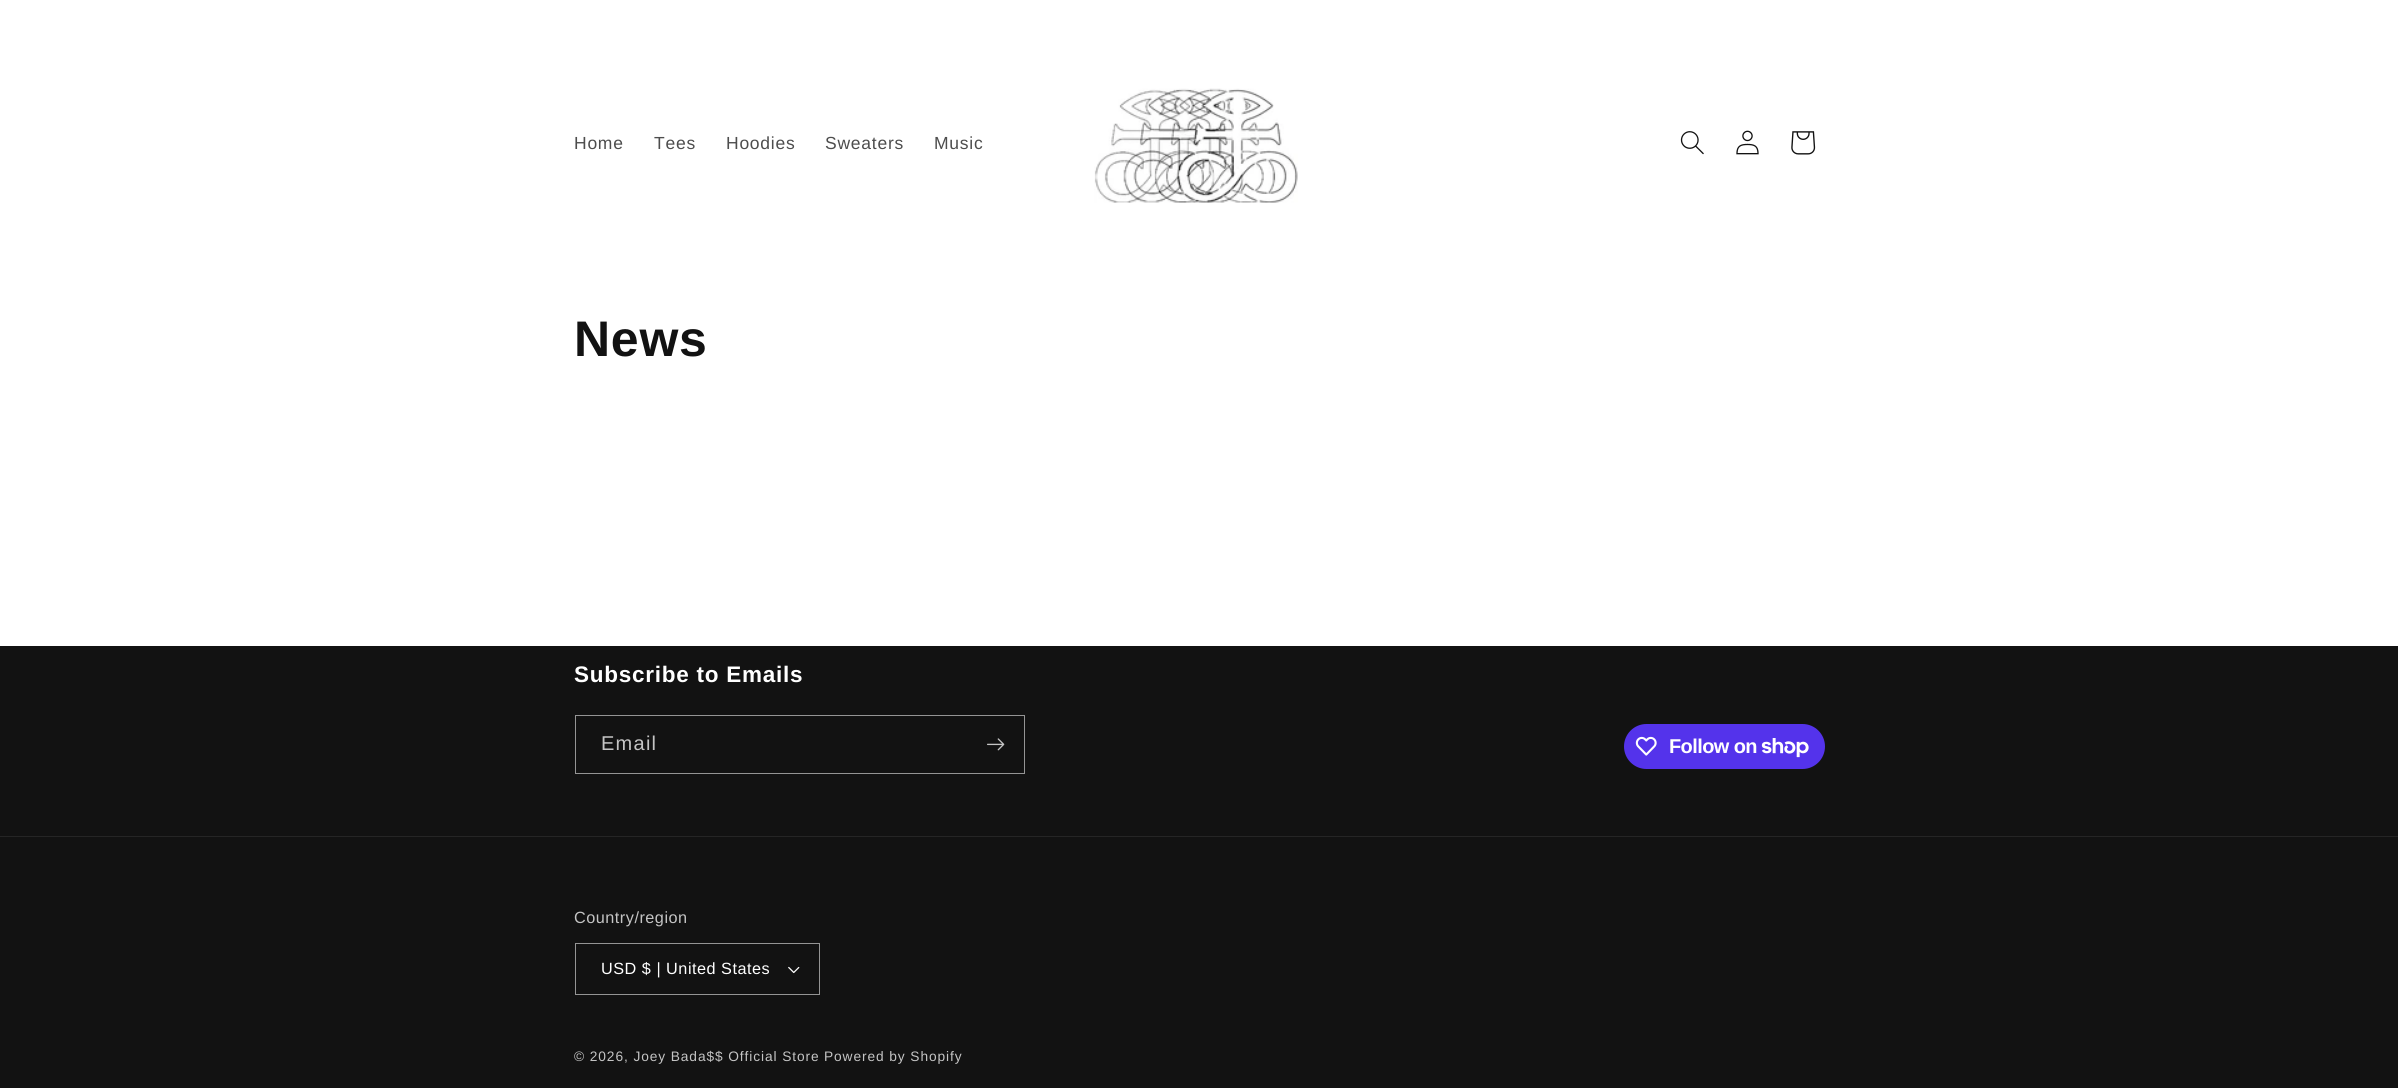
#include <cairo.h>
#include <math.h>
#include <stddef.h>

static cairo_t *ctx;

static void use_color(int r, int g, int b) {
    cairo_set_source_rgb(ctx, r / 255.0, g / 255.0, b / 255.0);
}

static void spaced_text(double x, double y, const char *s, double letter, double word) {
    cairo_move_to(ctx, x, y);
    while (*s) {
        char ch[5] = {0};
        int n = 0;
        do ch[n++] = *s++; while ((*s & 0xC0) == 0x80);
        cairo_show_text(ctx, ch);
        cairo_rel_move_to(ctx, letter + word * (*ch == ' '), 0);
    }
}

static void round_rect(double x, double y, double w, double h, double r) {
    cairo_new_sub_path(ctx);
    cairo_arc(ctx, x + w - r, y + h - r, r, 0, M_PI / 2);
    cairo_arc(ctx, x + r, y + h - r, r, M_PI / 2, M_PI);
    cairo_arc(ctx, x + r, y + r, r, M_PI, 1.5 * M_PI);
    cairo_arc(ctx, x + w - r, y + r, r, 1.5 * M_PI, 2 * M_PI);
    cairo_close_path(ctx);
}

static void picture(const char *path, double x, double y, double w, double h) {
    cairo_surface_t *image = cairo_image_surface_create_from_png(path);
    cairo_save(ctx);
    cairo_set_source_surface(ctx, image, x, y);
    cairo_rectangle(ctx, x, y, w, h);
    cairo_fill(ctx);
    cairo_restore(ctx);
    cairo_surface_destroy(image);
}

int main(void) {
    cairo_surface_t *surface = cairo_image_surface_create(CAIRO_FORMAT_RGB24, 2398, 1088);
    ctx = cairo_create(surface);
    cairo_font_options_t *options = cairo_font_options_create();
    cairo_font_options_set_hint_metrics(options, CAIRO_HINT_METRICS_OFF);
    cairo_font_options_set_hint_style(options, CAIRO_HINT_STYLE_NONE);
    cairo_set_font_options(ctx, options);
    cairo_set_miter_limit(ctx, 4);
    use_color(255, 255, 255);
    cairo_paint(ctx);
    cairo_select_font_face(ctx, "Liberation Sans", CAIRO_FONT_SLANT_NORMAL, CAIRO_FONT_WEIGHT_NORMAL);
    cairo_set_font_size(ctx, 17.5);
    use_color(77, 77, 77);
    spaced_text(574, 149, "Home", 0.75, 0);
    spaced_text(654, 149, "Tees", 0.75, 0);
    spaced_text(726, 149, "Hoodies", 0.75, 0);
    spaced_text(825, 149, "Sweaters", 0.75, 0);
    spaced_text(934, 149, "Music", 0.75, 0);
    picture("img1.png", 1094, 88, 204, 115);
    picture("img2.png", 1680, 131, 24, 24);
    picture("img3.png", 1736, 130, 23, 25);
    picture("img4.png", 1791, 131, 25, 24);
    cairo_select_font_face(ctx, "Liberation Sans", CAIRO_FONT_SLANT_NORMAL, CAIRO_FONT_WEIGHT_BOLD);
    cairo_set_font_size(ctx, 50);
    use_color(18, 18, 18);
    spaced_text(574, 356, "News", 0.75, 0);
    cairo_rectangle(ctx, 0, 646, 2398, 442);
    cairo_fill(ctx);
    cairo_set_font_size(ctx, 22.5);
    use_color(255, 255, 255);
    spaced_text(574, 682, "Subscribe to Emails", 0.75, 0);
    cairo_rectangle(ctx, 575.5, 715.5, 449, 58);
    use_color(148, 148, 148);
    cairo_set_line_width(ctx, 1);
    cairo_stroke(ctx);
    cairo_select_font_face(ctx, "Liberation Sans", CAIRO_FONT_SLANT_NORMAL, CAIRO_FONT_WEIGHT_NORMAL);
    cairo_set_font_size(ctx, 20);
    use_color(196, 196, 196);
    spaced_text(601, 750, "Email", 1.25, 0);
    picture("img5.png", 987, 738, 18, 13);
    use_color(84, 51, 235);
    round_rect(1624, 724, 201, 45, 22.5);
    cairo_fill(ctx);
    picture("img6.png", 1635, 736, 22, 20);
    cairo_select_font_face(ctx, "Liberation Sans", CAIRO_FONT_SLANT_NORMAL, CAIRO_FONT_WEIGHT_BOLD);
    use_color(255, 255, 255);
    spaced_text(1669, 753, "Follow on", -0.6, 0);
    picture("img7.png", 1761, 738, 48, 20);
    use_color(37, 37, 37);
    cairo_rectangle(ctx, 0, 836, 2398, 1);
    cairo_fill(ctx);
    cairo_select_font_face(ctx, "Liberation Sans", CAIRO_FONT_SLANT_NORMAL, CAIRO_FONT_WEIGHT_NORMAL);
    cairo_set_font_size(ctx, 16.25);
    use_color(196, 196, 196);
    spaced_text(574, 923, "Country/region", 0.5, 0);
    picture("img8.png", 788, 966, 12, 8);
    cairo_rectangle(ctx, 575.5, 943.5, 244, 51);
    use_color(148, 148, 148);
    cairo_stroke(ctx);
    use_color(255, 255, 255);
    spaced_text(601, 974, "USD $ | United States", 0.5, 0);
    cairo_set_font_size(ctx, 13.75);
    use_color(196, 196, 196);
    spaced_text(574, 1061, "© 2026, Joey Bada$$ Official Store", 0.9, 0);
    spaced_text(824, 1061, "Powered by Shopify", 0.9, 0);
    cairo_surface_write_to_png(surface, "result.png");
    cairo_font_options_destroy(options);
    cairo_destroy(ctx);
    cairo_surface_destroy(surface);
    return 0;
}
